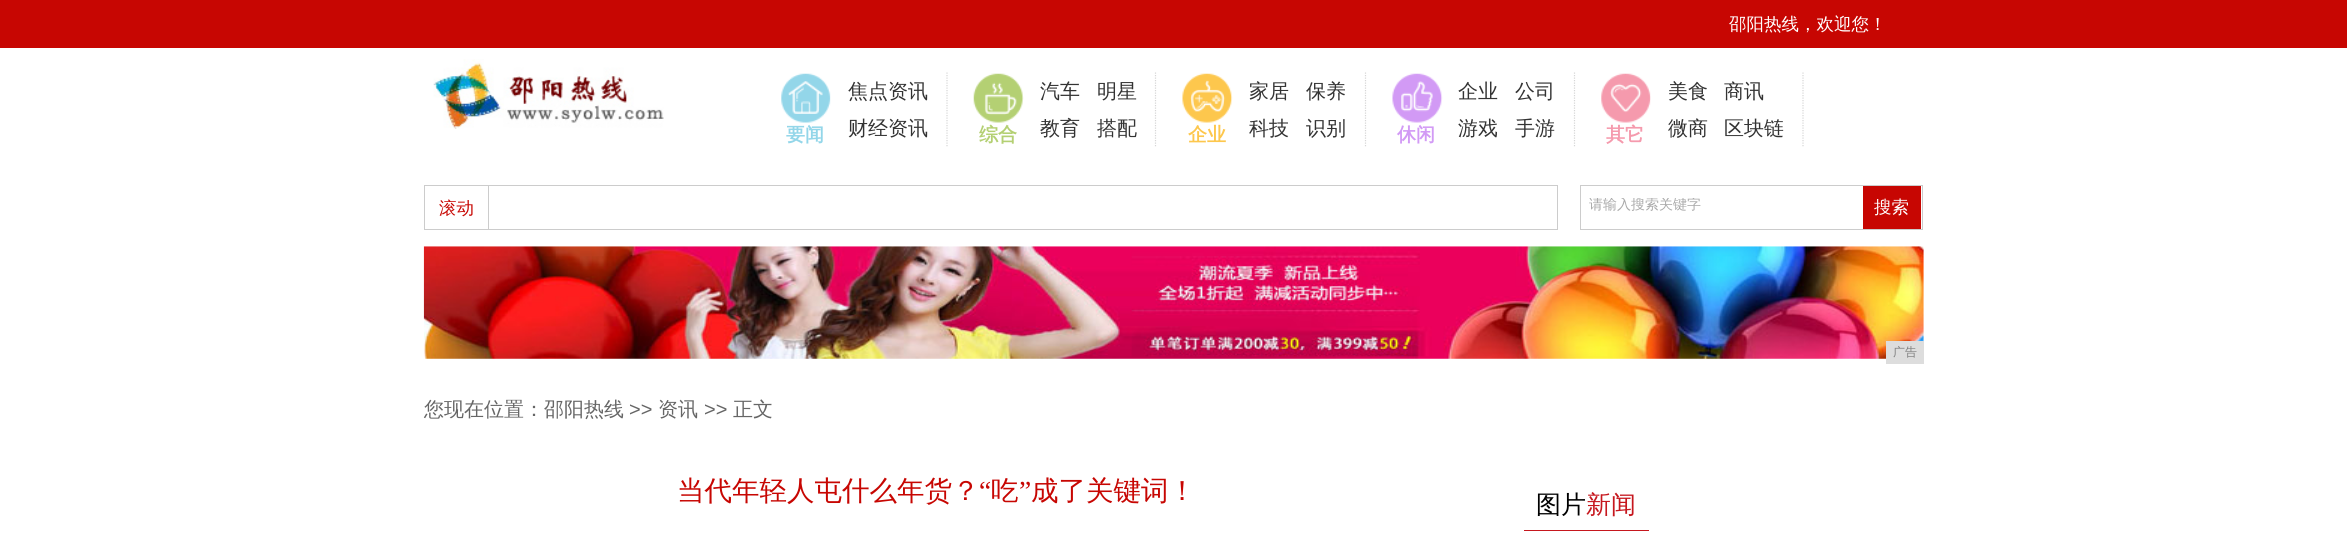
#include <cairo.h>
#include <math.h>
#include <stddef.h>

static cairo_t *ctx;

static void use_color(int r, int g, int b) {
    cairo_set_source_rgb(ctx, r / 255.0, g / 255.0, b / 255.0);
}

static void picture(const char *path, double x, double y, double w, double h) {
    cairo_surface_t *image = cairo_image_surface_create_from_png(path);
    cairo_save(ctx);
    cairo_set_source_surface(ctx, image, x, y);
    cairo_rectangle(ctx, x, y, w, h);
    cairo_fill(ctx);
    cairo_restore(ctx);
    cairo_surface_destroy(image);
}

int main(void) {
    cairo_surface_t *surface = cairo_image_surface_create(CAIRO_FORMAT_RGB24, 2347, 539);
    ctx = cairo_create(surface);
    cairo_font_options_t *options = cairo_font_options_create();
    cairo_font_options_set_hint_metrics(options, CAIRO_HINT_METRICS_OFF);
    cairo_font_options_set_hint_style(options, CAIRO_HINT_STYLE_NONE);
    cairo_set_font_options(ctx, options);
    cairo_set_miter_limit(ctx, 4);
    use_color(255, 255, 255);
    cairo_paint(ctx);
    use_color(199, 6, 2);
    cairo_rectangle(ctx, 0, 0, 2347, 48);
    cairo_fill(ctx);
    cairo_select_font_face(ctx, "WenQuanYi Zen Hei Medium", CAIRO_FONT_SLANT_NORMAL, CAIRO_FONT_WEIGHT_NORMAL);
    cairo_set_font_size(ctx, 17.5);
    use_color(255, 255, 255);
    cairo_move_to(ctx, 1729, 30);
    cairo_show_text(ctx, "邵阳热线，欢迎您！");
    picture("img1.png", 433, 59, 231, 70);
    cairo_new_path(ctx);
    cairo_move_to(ctx, 947, 72.5);
    cairo_line_to(ctx, 947, 147.5);
    use_color(214, 214, 214);
    cairo_set_line_width(ctx, 1.2);
    cairo_set_dash(ctx, (double[]){1.25, 1.25}, 2, 0);
    cairo_stroke(ctx);
    picture("img2.png", 781, 73, 50, 50);
    cairo_select_font_face(ctx, "WenQuanYi Zen Hei", CAIRO_FONT_SLANT_NORMAL, CAIRO_FONT_WEIGHT_BOLD);
    cairo_set_font_size(ctx, 19);
    use_color(147, 214, 233);
    cairo_move_to(ctx, 786, 141);
    cairo_show_text(ctx, "要闻");
    cairo_select_font_face(ctx, "WenQuanYi Zen Hei Medium", CAIRO_FONT_SLANT_NORMAL, CAIRO_FONT_WEIGHT_NORMAL);
    cairo_set_font_size(ctx, 20);
    use_color(51, 51, 51);
    cairo_move_to(ctx, 848, 98);
    cairo_show_text(ctx, "焦点资讯");
    cairo_move_to(ctx, 848, 135);
    cairo_show_text(ctx, "财经资讯");
    cairo_new_path(ctx);
    cairo_move_to(ctx, 1155.5, 72.5);
    cairo_line_to(ctx, 1155.5, 147.5);
    use_color(214, 214, 214);
    cairo_stroke(ctx);
    picture("img3.png", 973, 73, 51, 50);
    cairo_select_font_face(ctx, "WenQuanYi Zen Hei", CAIRO_FONT_SLANT_NORMAL, CAIRO_FONT_WEIGHT_BOLD);
    cairo_set_font_size(ctx, 19);
    use_color(180, 208, 115);
    cairo_move_to(ctx, 979, 141);
    cairo_show_text(ctx, "综合");
    cairo_select_font_face(ctx, "WenQuanYi Zen Hei Medium", CAIRO_FONT_SLANT_NORMAL, CAIRO_FONT_WEIGHT_NORMAL);
    cairo_set_font_size(ctx, 20);
    use_color(51, 51, 51);
    cairo_move_to(ctx, 1040, 98);
    cairo_show_text(ctx, "汽车");
    cairo_move_to(ctx, 1097, 98);
    cairo_show_text(ctx, "明星");
    cairo_move_to(ctx, 1040, 135);
    cairo_show_text(ctx, "教育");
    cairo_move_to(ctx, 1097, 135);
    cairo_show_text(ctx, "搭配");
    cairo_new_path(ctx);
    cairo_move_to(ctx, 1365.5, 72.5);
    cairo_line_to(ctx, 1365.5, 147.5);
    use_color(214, 214, 214);
    cairo_stroke(ctx);
    picture("img4.png", 1182, 73, 51, 50);
    cairo_select_font_face(ctx, "WenQuanYi Zen Hei", CAIRO_FONT_SLANT_NORMAL, CAIRO_FONT_WEIGHT_BOLD);
    cairo_set_font_size(ctx, 19);
    use_color(253, 199, 77);
    cairo_move_to(ctx, 1188, 141);
    cairo_show_text(ctx, "企业");
    cairo_select_font_face(ctx, "WenQuanYi Zen Hei Medium", CAIRO_FONT_SLANT_NORMAL, CAIRO_FONT_WEIGHT_NORMAL);
    cairo_set_font_size(ctx, 20);
    use_color(51, 51, 51);
    cairo_move_to(ctx, 1249, 98);
    cairo_show_text(ctx, "家居");
    cairo_move_to(ctx, 1306, 98);
    cairo_show_text(ctx, "保养");
    cairo_move_to(ctx, 1249, 135);
    cairo_show_text(ctx, "科技");
    cairo_move_to(ctx, 1306, 135);
    cairo_show_text(ctx, "识别");
    cairo_new_path(ctx);
    cairo_move_to(ctx, 1574.5, 72.5);
    cairo_line_to(ctx, 1574.5, 147.5);
    use_color(214, 214, 214);
    cairo_stroke(ctx);
    picture("img5.png", 1392, 73, 51, 50);
    cairo_select_font_face(ctx, "WenQuanYi Zen Hei", CAIRO_FONT_SLANT_NORMAL, CAIRO_FONT_WEIGHT_BOLD);
    cairo_set_font_size(ctx, 19);
    use_color(210, 154, 245);
    cairo_move_to(ctx, 1397, 141);
    cairo_show_text(ctx, "休闲");
    cairo_select_font_face(ctx, "WenQuanYi Zen Hei Medium", CAIRO_FONT_SLANT_NORMAL, CAIRO_FONT_WEIGHT_NORMAL);
    cairo_set_font_size(ctx, 20);
    use_color(51, 51, 51);
    cairo_move_to(ctx, 1458, 98);
    cairo_show_text(ctx, "企业");
    cairo_move_to(ctx, 1515, 98);
    cairo_show_text(ctx, "公司");
    cairo_move_to(ctx, 1458, 135);
    cairo_show_text(ctx, "游戏");
    cairo_move_to(ctx, 1515, 135);
    cairo_show_text(ctx, "手游");
    cairo_new_path(ctx);
    cairo_move_to(ctx, 1803, 72.5);
    cairo_line_to(ctx, 1803, 147.5);
    use_color(214, 214, 214);
    cairo_stroke(ctx);
    picture("img6.png", 1601, 73, 50, 50);
    cairo_select_font_face(ctx, "WenQuanYi Zen Hei", CAIRO_FONT_SLANT_NORMAL, CAIRO_FONT_WEIGHT_BOLD);
    cairo_set_font_size(ctx, 19);
    use_color(245, 154, 173);
    cairo_move_to(ctx, 1606, 141);
    cairo_show_text(ctx, "其它");
    cairo_select_font_face(ctx, "WenQuanYi Zen Hei Medium", CAIRO_FONT_SLANT_NORMAL, CAIRO_FONT_WEIGHT_NORMAL);
    cairo_set_font_size(ctx, 20);
    use_color(51, 51, 51);
    cairo_move_to(ctx, 1668, 98);
    cairo_show_text(ctx, "美食");
    cairo_move_to(ctx, 1724, 98);
    cairo_show_text(ctx, "商讯");
    cairo_move_to(ctx, 1668, 135);
    cairo_show_text(ctx, "微商");
    cairo_move_to(ctx, 1724, 135);
    cairo_show_text(ctx, "区块链");
    cairo_rectangle(ctx, 424.5, 185.5, 1133, 44);
    use_color(204, 204, 204);
    cairo_set_line_width(ctx, 1);
    cairo_set_dash(ctx, NULL, 0, 0);
    cairo_stroke(ctx);
    cairo_rectangle(ctx, 488, 186, 1, 43);
    cairo_fill(ctx);
    cairo_set_font_size(ctx, 17.5);
    use_color(199, 6, 2);
    cairo_move_to(ctx, 439, 214);
    cairo_show_text(ctx, "滚动");
    cairo_rectangle(ctx, 1580.5, 185.5, 342, 44);
    use_color(204, 204, 204);
    cairo_stroke(ctx);
    cairo_save(ctx);
    cairo_rectangle(ctx, 1589, 198, 274, 15);
    cairo_clip(ctx);
    cairo_set_font_size(ctx, 14);
    use_color(169, 169, 169);
    cairo_move_to(ctx, 1589, 209);
    cairo_show_text(ctx, "请输入搜索关键字");
    cairo_restore(ctx);
    use_color(199, 6, 2);
    cairo_rectangle(ctx, 1863, 186, 58, 43);
    cairo_fill(ctx);
    use_color(255, 255, 255);
    cairo_move_to(ctx, 1874, 213);
    cairo_show_text(ctx, "搜索");
    picture("img7.png", 423, 246, 1501, 113);
    use_color(221, 221, 221);
    cairo_rectangle(ctx, 1886, 341, 38, 23);
    cairo_fill(ctx);
    cairo_set_font_size(ctx, 12);
    use_color(128, 128, 128);
    cairo_move_to(ctx, 1893, 356);
    cairo_show_text(ctx, "广告");
    cairo_set_font_size(ctx, 20);
    use_color(102, 102, 102);
    cairo_move_to(ctx, 424, 416);
    cairo_show_text(ctx, "您现在位置：邵阳热线");
    cairo_select_font_face(ctx, "Liberation Sans", CAIRO_FONT_SLANT_NORMAL, CAIRO_FONT_WEIGHT_NORMAL);
    cairo_move_to(ctx, 629, 416);
    cairo_show_text(ctx, ">>");
    cairo_select_font_face(ctx, "WenQuanYi Zen Hei Medium", CAIRO_FONT_SLANT_NORMAL, CAIRO_FONT_WEIGHT_NORMAL);
    cairo_move_to(ctx, 658, 416);
    cairo_show_text(ctx, "资讯");
    cairo_select_font_face(ctx, "Liberation Sans", CAIRO_FONT_SLANT_NORMAL, CAIRO_FONT_WEIGHT_NORMAL);
    cairo_move_to(ctx, 704, 416);
    cairo_show_text(ctx, ">>");
    cairo_select_font_face(ctx, "WenQuanYi Zen Hei Medium", CAIRO_FONT_SLANT_NORMAL, CAIRO_FONT_WEIGHT_NORMAL);
    cairo_move_to(ctx, 733, 416);
    cairo_show_text(ctx, "正文");
    cairo_set_font_size(ctx, 27.5);
    use_color(199, 6, 2);
    cairo_move_to(ctx, 677, 500);
    cairo_show_text(ctx, "当代年轻人屯什么年货？");
    cairo_select_font_face(ctx, "Liberation Serif", CAIRO_FONT_SLANT_NORMAL, CAIRO_FONT_WEIGHT_NORMAL);
    cairo_move_to(ctx, 979, 500);
    cairo_show_text(ctx, "“");
    cairo_select_font_face(ctx, "WenQuanYi Zen Hei Medium", CAIRO_FONT_SLANT_NORMAL, CAIRO_FONT_WEIGHT_NORMAL);
    cairo_move_to(ctx, 991, 500);
    cairo_show_text(ctx, "吃");
    cairo_select_font_face(ctx, "Liberation Serif", CAIRO_FONT_SLANT_NORMAL, CAIRO_FONT_WEIGHT_NORMAL);
    cairo_move_to(ctx, 1019, 500);
    cairo_show_text(ctx, "”");
    cairo_select_font_face(ctx, "WenQuanYi Zen Hei Medium", CAIRO_FONT_SLANT_NORMAL, CAIRO_FONT_WEIGHT_NORMAL);
    cairo_move_to(ctx, 1031, 500);
    cairo_show_text(ctx, "成了关键词！");
    use_color(198, 23, 30);
    cairo_rectangle(ctx, 1524, 530, 125, 1);
    cairo_fill(ctx);
    cairo_set_font_size(ctx, 25);
    use_color(0, 0, 0);
    cairo_move_to(ctx, 1536, 513);
    cairo_show_text(ctx, "图片");
    use_color(198, 23, 30);
    cairo_move_to(ctx, 1586, 513);
    cairo_show_text(ctx, "新闻");
    cairo_surface_write_to_png(surface, "result.png");
    cairo_font_options_destroy(options);
    cairo_destroy(ctx);
    cairo_surface_destroy(surface);
    return 0;
}
